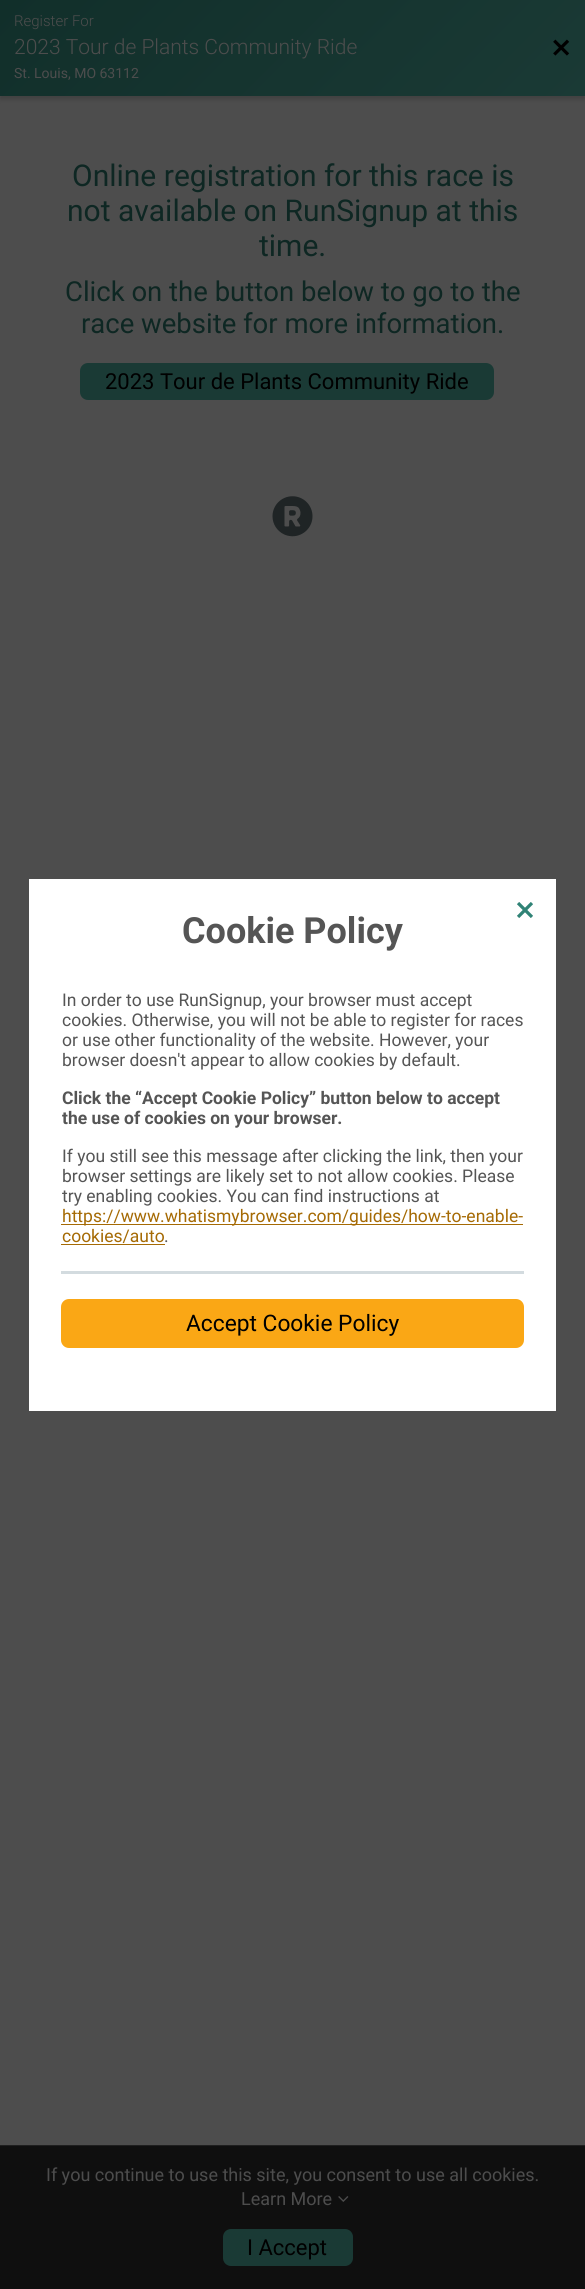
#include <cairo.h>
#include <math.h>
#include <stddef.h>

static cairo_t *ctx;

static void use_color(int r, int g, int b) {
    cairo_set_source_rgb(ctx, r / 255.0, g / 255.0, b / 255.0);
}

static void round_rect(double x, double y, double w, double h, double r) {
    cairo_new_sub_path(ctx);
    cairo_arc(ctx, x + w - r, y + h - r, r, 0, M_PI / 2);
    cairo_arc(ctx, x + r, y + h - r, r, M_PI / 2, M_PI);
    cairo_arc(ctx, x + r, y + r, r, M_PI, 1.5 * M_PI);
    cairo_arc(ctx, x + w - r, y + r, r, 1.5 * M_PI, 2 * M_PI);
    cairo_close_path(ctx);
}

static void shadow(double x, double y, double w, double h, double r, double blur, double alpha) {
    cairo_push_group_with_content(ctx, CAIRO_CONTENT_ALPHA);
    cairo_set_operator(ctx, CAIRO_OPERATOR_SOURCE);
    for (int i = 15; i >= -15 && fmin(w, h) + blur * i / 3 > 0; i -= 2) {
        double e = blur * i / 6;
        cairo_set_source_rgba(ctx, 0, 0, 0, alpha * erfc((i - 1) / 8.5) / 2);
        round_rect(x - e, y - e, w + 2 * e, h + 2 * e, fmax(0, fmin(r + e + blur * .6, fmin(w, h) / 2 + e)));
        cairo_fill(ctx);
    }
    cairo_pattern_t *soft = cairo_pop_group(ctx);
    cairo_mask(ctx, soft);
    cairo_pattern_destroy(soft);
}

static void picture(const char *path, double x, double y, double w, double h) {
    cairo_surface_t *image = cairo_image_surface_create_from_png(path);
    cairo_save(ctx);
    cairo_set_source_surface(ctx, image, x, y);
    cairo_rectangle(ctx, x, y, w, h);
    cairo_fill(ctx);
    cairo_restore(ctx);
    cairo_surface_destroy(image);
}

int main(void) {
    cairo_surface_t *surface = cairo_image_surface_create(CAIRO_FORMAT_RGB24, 585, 2289);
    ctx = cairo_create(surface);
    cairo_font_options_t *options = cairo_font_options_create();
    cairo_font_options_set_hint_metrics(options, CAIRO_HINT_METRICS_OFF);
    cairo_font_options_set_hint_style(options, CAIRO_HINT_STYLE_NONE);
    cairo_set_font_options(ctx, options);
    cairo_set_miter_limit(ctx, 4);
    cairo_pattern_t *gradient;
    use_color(77, 77, 77);
    cairo_paint(ctx);
    use_color(0, 0, 0);
    shadow(0, 3, 585, 96, 0, 2.5, 0.18);
    gradient = cairo_pattern_create_linear(463, 218, 122, -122);
    cairo_pattern_add_color_stop_rgba(gradient, 0, 0.102, 0.227, 0.208, 1);
    cairo_pattern_add_color_stop_rgba(gradient, 1, 0.067, 0.184, 0.165, 1);
    cairo_set_source(ctx, gradient);
    cairo_pattern_destroy(gradient);
    cairo_rectangle(ctx, 0, 0, 585, 96);
    cairo_fill(ctx);
    cairo_select_font_face(ctx, "Roboto Light", CAIRO_FONT_SLANT_NORMAL, CAIRO_FONT_WEIGHT_NORMAL);
    cairo_set_font_size(ctx, 15);
    use_color(77, 77, 77);
    cairo_move_to(ctx, 14, 26);
    cairo_show_text(ctx, "Register For");
    cairo_set_font_size(ctx, 21);
    cairo_move_to(ctx, 14, 54);
    cairo_show_text(ctx, "2023 Tour de Plants Community Ride");
    cairo_select_font_face(ctx, "Roboto", CAIRO_FONT_SLANT_NORMAL, CAIRO_FONT_WEIGHT_NORMAL);
    cairo_set_font_size(ctx, 14);
    cairo_move_to(ctx, 14, 78);
    cairo_show_text(ctx, "St. Louis, MO 63112");
    picture("img1.png", 553, 39, 17, 17);
    cairo_set_font_size(ctx, 30);
    use_color(14, 39, 35);
    cairo_move_to(ctx, 72, 186);
    cairo_show_text(ctx, "Online registration for this race is");
    cairo_move_to(ctx, 67, 221);
    cairo_show_text(ctx, "not available on RunSignup at this");
    cairo_move_to(ctx, 259, 256);
    cairo_show_text(ctx, "time.");
    cairo_set_font_size(ctx, 27.5);
    cairo_move_to(ctx, 65, 301);
    cairo_show_text(ctx, "Click on the button below to go to the");
    cairo_move_to(ctx, 81, 333);
    cairo_show_text(ctx, "race website for more information.");
    use_color(26, 58, 53);
    round_rect(80, 363, 414, 37, 8);
    cairo_fill(ctx);
    cairo_set_font_size(ctx, 22);
    use_color(0, 0, 0);
    cairo_move_to(ctx, 105, 389);
    cairo_show_text(ctx, "2023 Tour de Plants Community Ride");
    picture("img2.png", 272, 496, 41, 41);
    cairo_rectangle(ctx, 29.5, 879.5, 526, 531);
    use_color(255, 255, 255);
    cairo_set_line_width(ctx, 1);
    cairo_stroke(ctx);
    cairo_rectangle(ctx, 30, 880, 525, 530);
    cairo_fill(ctx);
    picture("img3.png", 517, 902, 16, 16);
    cairo_select_font_face(ctx, "Roboto", CAIRO_FONT_SLANT_NORMAL, CAIRO_FONT_WEIGHT_BOLD);
    cairo_set_font_size(ctx, 36);
    use_color(85, 85, 85);
    cairo_move_to(ctx, 182, 943);
    cairo_show_text(ctx, "Cookie Policy");
    cairo_select_font_face(ctx, "Roboto", CAIRO_FONT_SLANT_NORMAL, CAIRO_FONT_WEIGHT_NORMAL);
    cairo_set_font_size(ctx, 17.5);
    cairo_move_to(ctx, 62, 1006);
    cairo_show_text(ctx, "In order to use RunSignup, your browser must accept");
    cairo_move_to(ctx, 62, 1026);
    cairo_show_text(ctx, "cookies. Otherwise, you will not be able to register for races");
    cairo_move_to(ctx, 62, 1046);
    cairo_show_text(ctx, "or use other functionality of the website. However, your");
    cairo_move_to(ctx, 62, 1066);
    cairo_show_text(ctx, "browser doesn't appear to allow cookies by default.");
    cairo_select_font_face(ctx, "Roboto", CAIRO_FONT_SLANT_NORMAL, CAIRO_FONT_WEIGHT_BOLD);
    cairo_move_to(ctx, 62, 1104);
    cairo_show_text(ctx, "Click the “Accept Cookie Policy” button below to accept");
    cairo_move_to(ctx, 62, 1124);
    cairo_show_text(ctx, "the use of cookies on your browser.");
    cairo_select_font_face(ctx, "Roboto", CAIRO_FONT_SLANT_NORMAL, CAIRO_FONT_WEIGHT_NORMAL);
    cairo_move_to(ctx, 62, 1162);
    cairo_show_text(ctx, "If you still see this message after clicking the link, then your");
    cairo_move_to(ctx, 62, 1182);
    cairo_show_text(ctx, "browser settings are likely set to not allow cookies. Please");
    cairo_move_to(ctx, 62, 1202);
    cairo_show_text(ctx, "try enabling cookies. You can find instructions at");
    use_color(165, 106, 4);
    cairo_rectangle(ctx, 61, 1224, 462, 1);
    cairo_fill(ctx);
    cairo_move_to(ctx, 62, 1222);
    cairo_show_text(ctx, "https://www.whatismybrowser.com/guides/how-to-enable-");
    cairo_move_to(ctx, 62, 1242);
    cairo_show_text(ctx, "cookies/auto");
    cairo_rectangle(ctx, 61, 1244, 104, 1);
    cairo_fill(ctx);
    use_color(85, 85, 85);
    cairo_move_to(ctx, 164, 1242);
    cairo_show_text(ctx, ".");
    use_color(211, 219, 223);
    cairo_rectangle(ctx, 61, 1271, 463, 3);
    cairo_fill(ctx);
    use_color(250, 167, 21);
    round_rect(61, 1299, 463, 49, 8);
    cairo_fill(ctx);
    cairo_set_font_size(ctx, 22.75);
    use_color(0, 0, 0);
    cairo_move_to(ctx, 186, 1331);
    cairo_show_text(ctx, "Accept Cookie Policy");
    use_color(15, 15, 15);
    cairo_rectangle(ctx, 0, 2146, 585, 143);
    cairo_fill(ctx);
    use_color(31, 31, 31);
    cairo_rectangle(ctx, 0, 2145, 585, 1);
    cairo_fill(ctx);
    cairo_set_font_size(ctx, 18);
    use_color(77, 77, 77);
    cairo_move_to(ctx, 46, 2181);
    cairo_show_text(ctx, "If you continue to use this site, you consent to use all cookies.");
    cairo_move_to(ctx, 241, 2205);
    cairo_show_text(ctx, "Learn More");
    picture("img4.png", 338, 2196, 11, 6);
    use_color(26, 58, 53);
    round_rect(223, 2229, 130, 37, 8);
    cairo_fill(ctx);
    cairo_set_font_size(ctx, 22);
    use_color(0, 0, 0);
    cairo_move_to(ctx, 247, 2255);
    cairo_show_text(ctx, "I Accept");
    cairo_surface_write_to_png(surface, "result.png");
    cairo_font_options_destroy(options);
    cairo_destroy(ctx);
    cairo_surface_destroy(surface);
    return 0;
}
